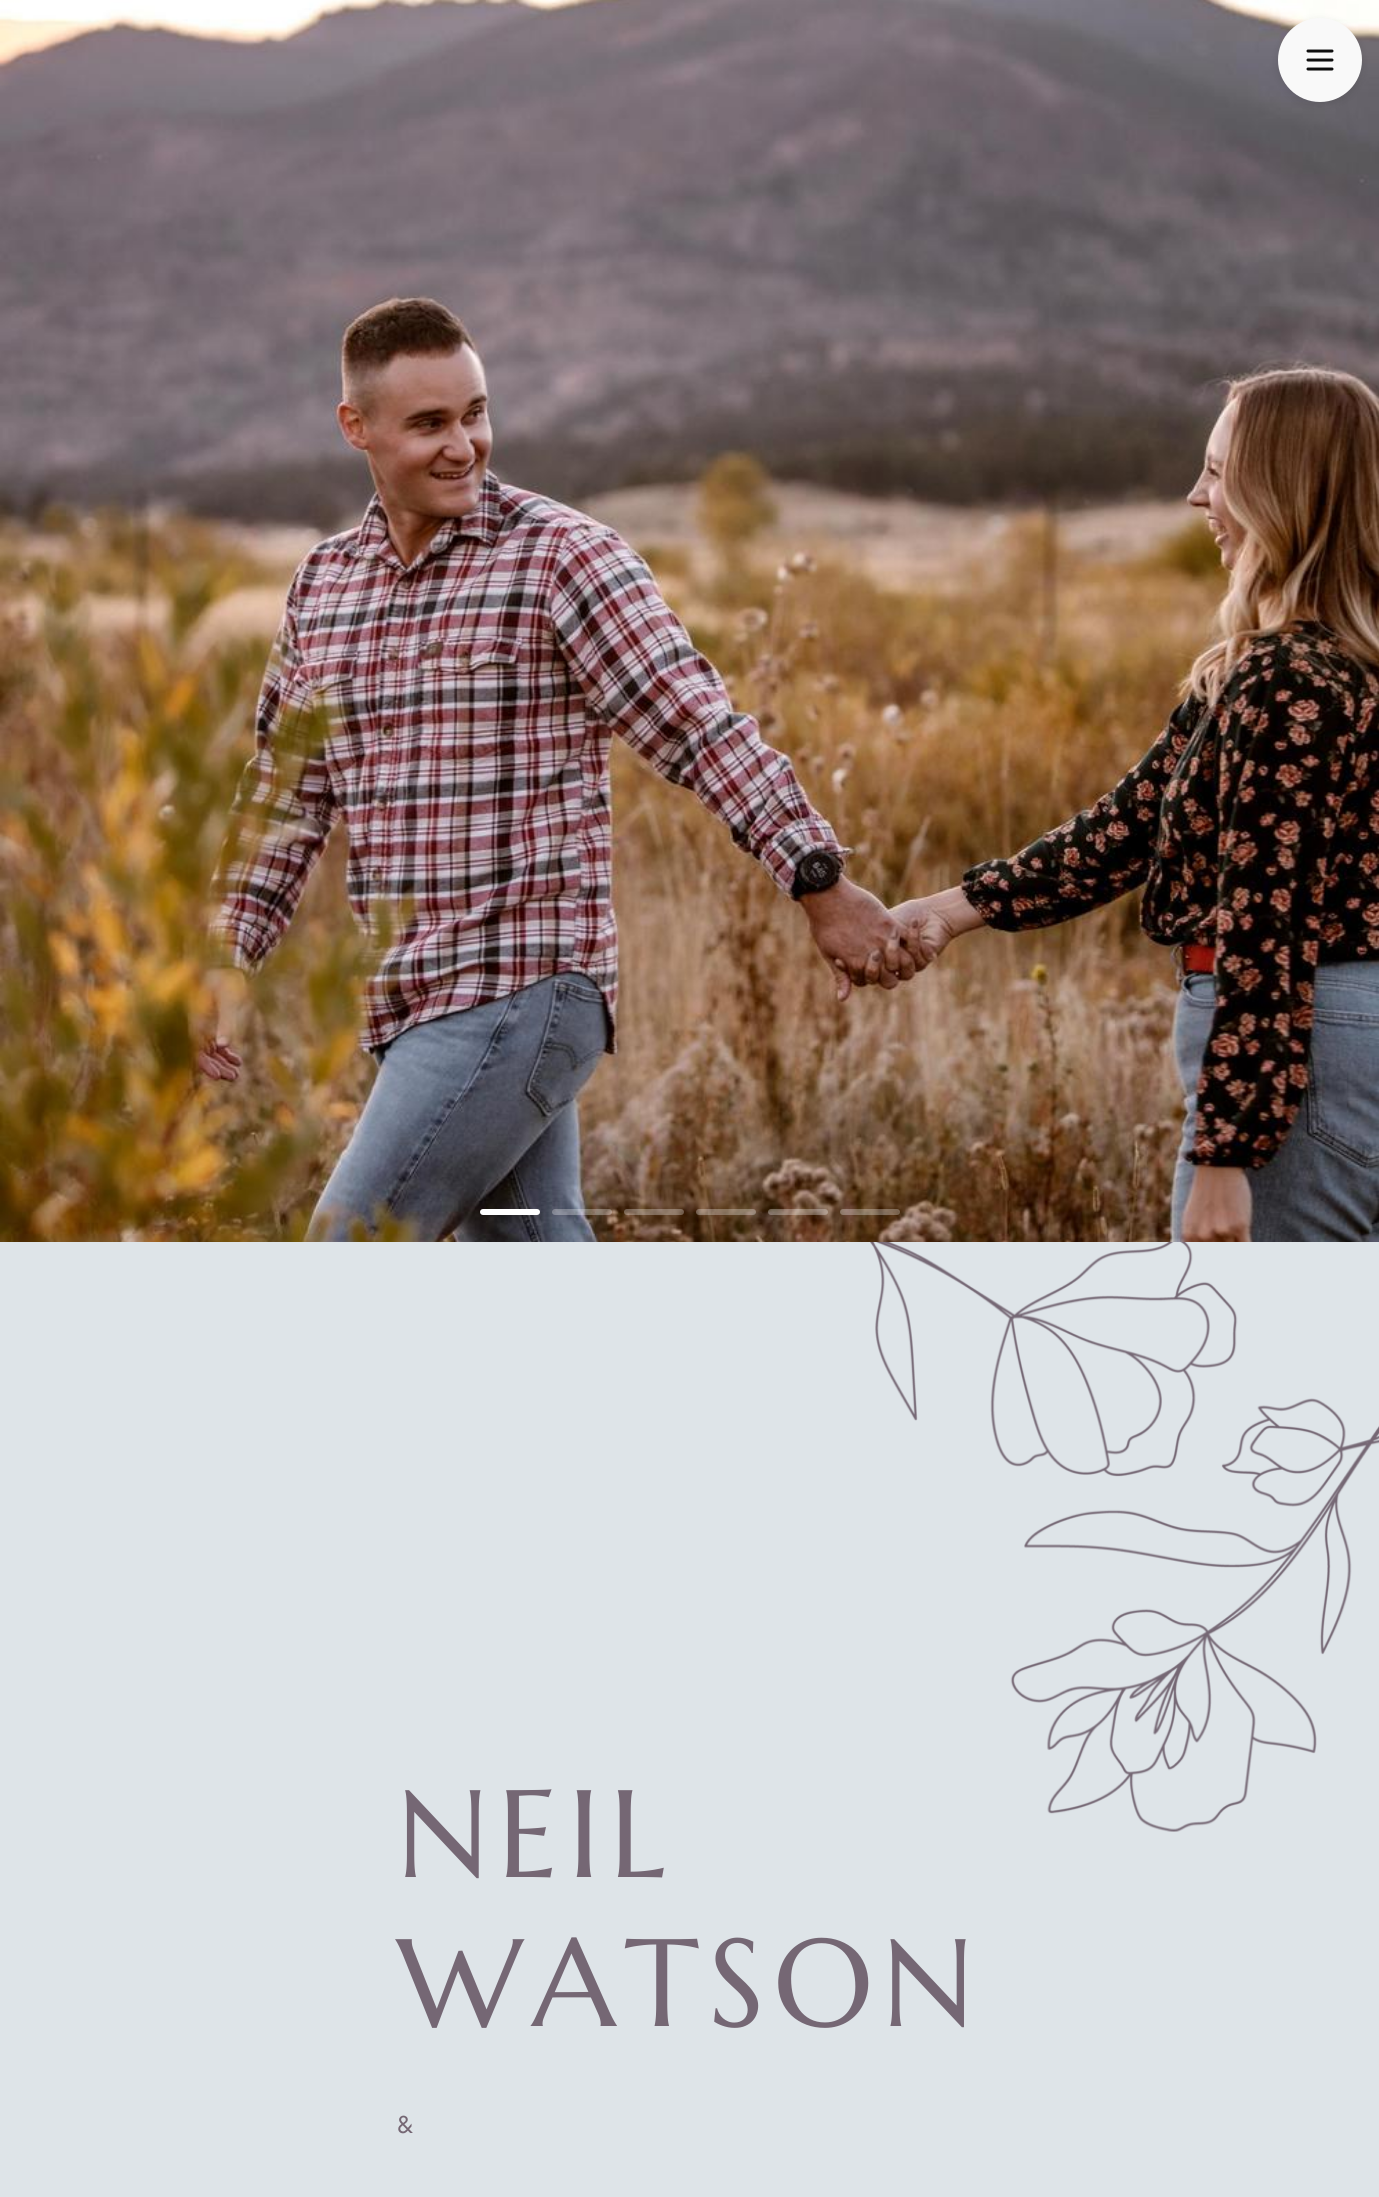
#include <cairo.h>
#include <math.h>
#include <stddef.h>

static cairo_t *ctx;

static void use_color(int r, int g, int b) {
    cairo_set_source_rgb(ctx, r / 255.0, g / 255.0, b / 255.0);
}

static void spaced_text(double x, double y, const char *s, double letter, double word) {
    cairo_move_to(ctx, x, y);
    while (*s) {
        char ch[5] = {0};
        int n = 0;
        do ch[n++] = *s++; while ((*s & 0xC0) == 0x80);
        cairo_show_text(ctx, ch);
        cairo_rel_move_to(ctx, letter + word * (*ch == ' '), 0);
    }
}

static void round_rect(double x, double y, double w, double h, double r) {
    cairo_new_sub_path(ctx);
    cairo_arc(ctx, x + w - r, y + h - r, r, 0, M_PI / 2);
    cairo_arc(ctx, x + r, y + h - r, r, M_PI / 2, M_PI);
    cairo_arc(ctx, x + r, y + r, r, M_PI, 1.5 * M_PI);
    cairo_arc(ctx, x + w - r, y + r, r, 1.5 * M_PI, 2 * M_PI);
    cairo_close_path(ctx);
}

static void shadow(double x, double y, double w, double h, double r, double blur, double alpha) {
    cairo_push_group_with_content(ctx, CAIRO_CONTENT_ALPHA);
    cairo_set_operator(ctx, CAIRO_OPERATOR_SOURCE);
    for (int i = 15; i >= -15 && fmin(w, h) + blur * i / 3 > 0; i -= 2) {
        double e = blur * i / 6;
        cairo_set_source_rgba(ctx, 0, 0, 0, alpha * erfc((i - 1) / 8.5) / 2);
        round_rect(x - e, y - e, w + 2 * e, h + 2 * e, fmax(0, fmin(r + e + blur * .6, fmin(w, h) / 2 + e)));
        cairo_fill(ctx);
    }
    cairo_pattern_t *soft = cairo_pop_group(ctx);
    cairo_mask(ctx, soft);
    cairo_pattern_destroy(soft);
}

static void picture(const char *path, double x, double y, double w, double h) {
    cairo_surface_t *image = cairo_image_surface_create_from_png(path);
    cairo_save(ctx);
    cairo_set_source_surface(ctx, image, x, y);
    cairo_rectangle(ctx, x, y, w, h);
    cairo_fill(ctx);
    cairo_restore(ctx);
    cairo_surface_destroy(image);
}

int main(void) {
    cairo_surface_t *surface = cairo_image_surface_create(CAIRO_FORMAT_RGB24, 1379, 2197);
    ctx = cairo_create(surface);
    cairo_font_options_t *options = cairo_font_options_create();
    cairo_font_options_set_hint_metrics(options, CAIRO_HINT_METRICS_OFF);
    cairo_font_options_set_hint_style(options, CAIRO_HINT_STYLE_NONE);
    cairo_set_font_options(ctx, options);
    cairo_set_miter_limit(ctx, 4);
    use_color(222, 228, 232);
    cairo_paint(ctx);
    picture("img1.png", 0, 0, 1379, 1242);
    use_color(255, 255, 255);
    round_rect(480, 1209, 60, 6, 3);
    cairo_fill(ctx);
    cairo_set_source_rgba(ctx, 1, 1, 1, 0.3);
    round_rect(552, 1209, 60, 6, 3);
    cairo_fill(ctx);
    round_rect(624, 1209, 60, 6, 3);
    cairo_fill(ctx);
    round_rect(696, 1209, 60, 6, 3);
    cairo_fill(ctx);
    round_rect(768, 1209, 60, 6, 3);
    cairo_fill(ctx);
    round_rect(840, 1209, 60, 6, 3);
    cairo_fill(ctx);
    use_color(0, 0, 0);
    shadow(1278, 21, 84, 84, 42, 4.5, 0.1);
    use_color(249, 249, 249);
    cairo_arc(ctx, 1320, 60, 42, 0, 2 * M_PI);
    cairo_fill(ctx);
    cairo_new_path(ctx);
    cairo_move_to(ctx, 1308, 51);
    cairo_line_to(ctx, 1332, 51);
    cairo_move_to(ctx, 1308, 60);
    cairo_line_to(ctx, 1332, 60);
    cairo_move_to(ctx, 1308, 69);
    cairo_line_to(ctx, 1332, 69);
    use_color(14, 14, 14);
    cairo_set_line_width(ctx, 3);
    cairo_set_line_cap(ctx, CAIRO_LINE_CAP_ROUND);
    cairo_set_line_join(ctx, CAIRO_LINE_JOIN_ROUND);
    cairo_stroke(ctx);
    picture("img2.png", 870, 1242, 509, 590);
    cairo_select_font_face(ctx, "Marcellus", CAIRO_FONT_SLANT_NORMAL, CAIRO_FONT_WEIGHT_NORMAL);
    cairo_set_font_size(ctx, 124);
    use_color(117, 103, 116);
    spaced_text(397, 1877, "NEIL", 9, 0);
    spaced_text(397, 2026, "WATSON", 9, 0);
    cairo_select_font_face(ctx, "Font", CAIRO_FONT_SLANT_NORMAL, CAIRO_FONT_WEIGHT_NORMAL);
    cairo_set_font_size(ctx, 24);
    cairo_move_to(ctx, 397, 2133);
    cairo_show_text(ctx, "&");
    cairo_surface_write_to_png(surface, "result.png");
    cairo_font_options_destroy(options);
    cairo_destroy(ctx);
    cairo_surface_destroy(surface);
    return 0;
}
